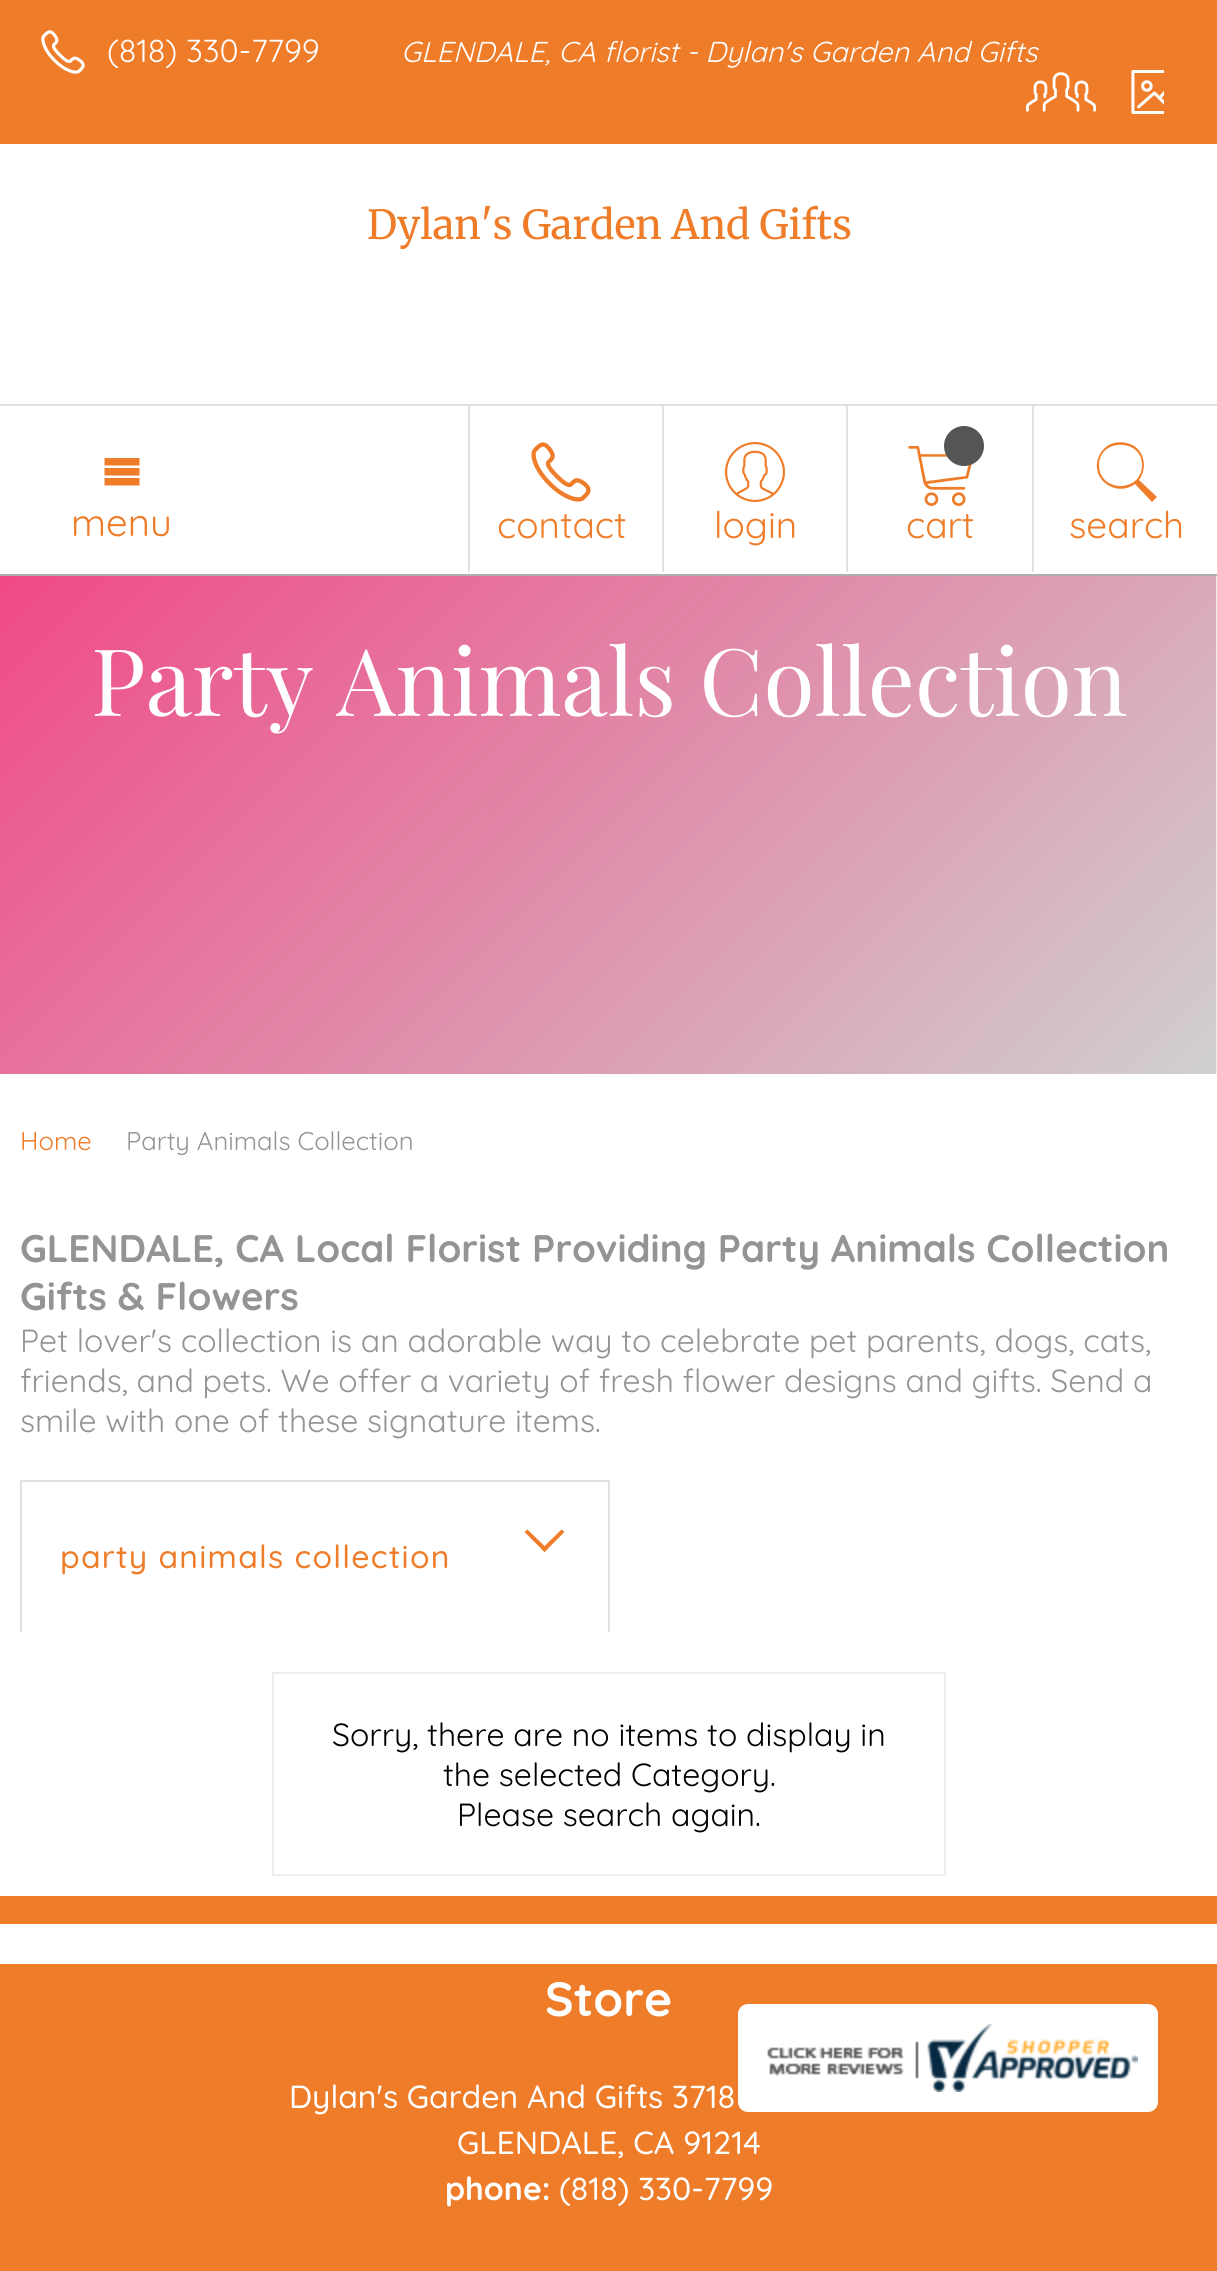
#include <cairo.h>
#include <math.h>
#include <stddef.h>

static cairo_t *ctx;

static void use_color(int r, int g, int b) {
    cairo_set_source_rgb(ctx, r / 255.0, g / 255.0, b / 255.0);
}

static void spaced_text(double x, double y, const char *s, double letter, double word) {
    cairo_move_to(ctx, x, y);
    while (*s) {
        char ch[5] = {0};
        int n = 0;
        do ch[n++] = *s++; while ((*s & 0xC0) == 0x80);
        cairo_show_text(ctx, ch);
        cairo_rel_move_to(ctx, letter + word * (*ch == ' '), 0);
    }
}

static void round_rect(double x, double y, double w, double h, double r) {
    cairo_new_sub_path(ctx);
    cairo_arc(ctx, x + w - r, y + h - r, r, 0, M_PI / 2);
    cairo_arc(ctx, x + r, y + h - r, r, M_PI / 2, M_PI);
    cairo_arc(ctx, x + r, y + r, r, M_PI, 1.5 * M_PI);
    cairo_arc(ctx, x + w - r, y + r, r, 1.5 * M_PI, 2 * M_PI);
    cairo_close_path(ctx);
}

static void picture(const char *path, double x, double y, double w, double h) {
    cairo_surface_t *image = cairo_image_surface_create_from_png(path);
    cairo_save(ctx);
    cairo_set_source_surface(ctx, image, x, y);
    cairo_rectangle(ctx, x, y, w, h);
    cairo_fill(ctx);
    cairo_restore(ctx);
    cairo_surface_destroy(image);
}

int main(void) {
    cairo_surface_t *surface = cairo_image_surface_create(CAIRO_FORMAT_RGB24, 1217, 2271);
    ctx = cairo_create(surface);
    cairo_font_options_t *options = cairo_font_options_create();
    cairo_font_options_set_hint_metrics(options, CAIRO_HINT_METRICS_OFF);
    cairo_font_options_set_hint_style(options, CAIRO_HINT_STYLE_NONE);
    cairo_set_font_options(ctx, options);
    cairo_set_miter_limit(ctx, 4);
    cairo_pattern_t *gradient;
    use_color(255, 255, 255);
    cairo_paint(ctx);
    use_color(239, 124, 41);
    cairo_rectangle(ctx, 0, 0, 1217, 144);
    cairo_fill(ctx);
    picture("img1.png", 41, 30, 44, 44);
    cairo_select_font_face(ctx, "Quicksand", CAIRO_FONT_SLANT_NORMAL, CAIRO_FONT_WEIGHT_NORMAL);
    cairo_set_font_size(ctx, 32);
    use_color(255, 255, 255);
    cairo_move_to(ctx, 107, 62);
    cairo_show_text(ctx, "(818) 330-7799");
    cairo_select_font_face(ctx, "Quicksand", CAIRO_FONT_SLANT_ITALIC, CAIRO_FONT_WEIGHT_NORMAL);
    cairo_set_font_size(ctx, 28.8);
    cairo_move_to(ctx, 401, 62);
    cairo_show_text(ctx, "GLENDALE, CA florist - Dylan's Garden And Gifts");
    picture("img2.png", 1026, 72, 70, 40);
    picture("img3.png", 1131, 70, 33, 44);
    use_color(175, 175, 175);
    cairo_rectangle(ctx, 0, 574, 1217, 2);
    cairo_fill(ctx);
    cairo_select_font_face(ctx, "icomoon", CAIRO_FONT_SLANT_NORMAL, CAIRO_FONT_WEIGHT_NORMAL);
    cairo_set_font_size(ctx, 40);
    use_color(239, 124, 41);
    cairo_move_to(ctx, 102, 488);
    cairo_show_text(ctx, ":");
    cairo_select_font_face(ctx, "Quicksand", CAIRO_FONT_SLANT_NORMAL, CAIRO_FONT_WEIGHT_NORMAL);
    cairo_set_font_size(ctx, 38.4);
    cairo_move_to(ctx, 71, 536);
    cairo_show_text(ctx, "menu");
    cairo_select_font_face(ctx, "Merriweather", CAIRO_FONT_SLANT_NORMAL, CAIRO_FONT_WEIGHT_NORMAL);
    cairo_set_font_size(ctx, 40);
    cairo_move_to(ctx, 367, 239);
    cairo_show_text(ctx, "Dylan's Garden And Gifts");
    use_color(225, 225, 225);
    cairo_rectangle(ctx, 0, 404, 1217, 2);
    cairo_fill(ctx);
    cairo_rectangle(ctx, 468, 406, 2, 166);
    cairo_fill(ctx);
    picture("img4.png", 531, 442, 60, 60);
    cairo_select_font_face(ctx, "Quicksand", CAIRO_FONT_SLANT_NORMAL, CAIRO_FONT_WEIGHT_NORMAL);
    cairo_set_font_size(ctx, 37);
    use_color(239, 124, 41);
    cairo_move_to(ctx, 497, 538);
    cairo_show_text(ctx, "contact");
    use_color(225, 225, 225);
    cairo_rectangle(ctx, 846, 406, 2, 166);
    cairo_fill(ctx);
    cairo_rectangle(ctx, 662, 406, 2, 166);
    cairo_fill(ctx);
    picture("img5.png", 725, 442, 60, 60);
    use_color(239, 124, 41);
    cairo_move_to(ctx, 714, 538);
    cairo_show_text(ctx, "login");
    picture("img6.png", 908, 446, 64, 60);
    use_color(84, 86, 85);
    cairo_arc(ctx, 964, 446, 20, 0, 2 * M_PI);
    cairo_fill(ctx);
    use_color(239, 124, 41);
    cairo_move_to(ctx, 906, 538);
    cairo_show_text(ctx, "cart");
    use_color(225, 225, 225);
    cairo_rectangle(ctx, 1032, 406, 2, 166);
    cairo_fill(ctx);
    use_color(239, 124, 41);
    cairo_new_path(ctx);
    cairo_move_to(ctx, 1157, 497);
    cairo_line_to(ctx, 1139, 480);
    cairo_curve_to(ctx, 1147, 469, 1145, 453, 1134, 446);
    cairo_curve_to(ctx, 1127, 442, 1119, 441, 1111, 444);
    cairo_curve_to(ctx, 1106, 446, 1101, 451, 1099, 456);
    cairo_curve_to(ctx, 1089, 479, 1116, 498, 1135, 484);
    cairo_line_to(ctx, 1152, 502);
    cairo_close_path(ctx);
    cairo_move_to(ctx, 1099, 465);
    cairo_curve_to(ctx, 1099, 438, 1142, 438, 1142, 465);
    cairo_curve_to(ctx, 1142, 493, 1099, 493, 1099, 465);
    cairo_close_path(ctx);
    cairo_fill(ctx);
    cairo_move_to(ctx, 1069, 538);
    cairo_show_text(ctx, "search");
    gradient = cairo_pattern_create_linear(179, 397, 1037, 1254);
    cairo_pattern_add_color_stop_rgba(gradient, 0, 0.941, 0.29, 0.529, 1);
    cairo_pattern_add_color_stop_rgba(gradient, 1, 0.816, 0.816, 0.816, 1);
    cairo_set_source(ctx, gradient);
    cairo_pattern_destroy(gradient);
    cairo_rectangle(ctx, 0, 576, 1216, 498);
    cairo_fill(ctx);
    use_color(238, 238, 238);
    cairo_rectangle(ctx, 1216, 576, 1, 498);
    cairo_fill(ctx);
    cairo_select_font_face(ctx, "Playfair Display", CAIRO_FONT_SLANT_NORMAL, CAIRO_FONT_WEIGHT_NORMAL);
    cairo_set_font_size(ctx, 93.25);
    use_color(255, 255, 255);
    cairo_move_to(ctx, 91, 716);
    cairo_show_text(ctx, "Party Animals Collection");
    cairo_select_font_face(ctx, "Quicksand", CAIRO_FONT_SLANT_NORMAL, CAIRO_FONT_WEIGHT_NORMAL);
    cairo_set_font_size(ctx, 25.6);
    use_color(239, 124, 41);
    cairo_move_to(ctx, 20, 1150);
    cairo_show_text(ctx, "Home");
    use_color(148, 148, 148);
    cairo_move_to(ctx, 126, 1150);
    cairo_show_text(ctx, "Party Animals Collection");
    cairo_select_font_face(ctx, "Quicksand", CAIRO_FONT_SLANT_NORMAL, CAIRO_FONT_WEIGHT_BOLD);
    cairo_set_font_size(ctx, 38.4);
    cairo_move_to(ctx, 20, 1262);
    cairo_show_text(ctx, "GLENDALE, CA Local Florist Providing Party Animals Collection");
    cairo_move_to(ctx, 20, 1310);
    cairo_show_text(ctx, "Gifts & Flowers");
    cairo_select_font_face(ctx, "Quicksand", CAIRO_FONT_SLANT_NORMAL, CAIRO_FONT_WEIGHT_NORMAL);
    cairo_set_font_size(ctx, 32);
    cairo_move_to(ctx, 20, 1352);
    cairo_show_text(ctx, "Pet lover's collection is an adorable way to celebrate pet parents, dogs, cats,");
    cairo_move_to(ctx, 20, 1392);
    cairo_show_text(ctx, "friends, and pets. We offer a variety of fresh flower designs and gifts. Send a");
    cairo_move_to(ctx, 20, 1432);
    cairo_show_text(ctx, "smile with one of these signature items.");
    use_color(225, 225, 225);
    cairo_rectangle(ctx, 20, 1480, 590, 2);
    cairo_fill(ctx);
    cairo_rectangle(ctx, 608, 1480, 2, 152);
    cairo_fill(ctx);
    cairo_rectangle(ctx, 20, 1480, 2, 152);
    cairo_fill(ctx);
    use_color(239, 124, 41);
    cairo_new_path(ctx);
    cairo_move_to(ctx, 561.5, 1529.5);
    cairo_line_to(ctx, 564.5, 1532);
    cairo_line_to(ctx, 544.5, 1552);
    cairo_line_to(ctx, 541.5, 1549);
    cairo_close_path(ctx);
    cairo_fill(ctx);
    cairo_new_path(ctx);
    cairo_move_to(ctx, 527.5, 1529.5);
    cairo_line_to(ctx, 547.5, 1549);
    cairo_line_to(ctx, 544.5, 1552);
    cairo_line_to(ctx, 524.5, 1532);
    cairo_close_path(ctx);
    cairo_fill(ctx);
    cairo_select_font_face(ctx, "Quicksand Medium", CAIRO_FONT_SLANT_NORMAL, CAIRO_FONT_WEIGHT_NORMAL);
    spaced_text(60, 1568, "party animals collection", 1.25, 0);
    cairo_rectangle(ctx, 273, 1673, 672, 202);
    use_color(238, 238, 238);
    cairo_stroke(ctx);
    cairo_select_font_face(ctx, "Quicksand", CAIRO_FONT_SLANT_NORMAL, CAIRO_FONT_WEIGHT_NORMAL);
    use_color(0, 0, 0);
    cairo_move_to(ctx, 332, 1746);
    cairo_show_text(ctx, "Sorry, there are no items to display in");
    cairo_move_to(ctx, 443, 1786);
    cairo_show_text(ctx, "the selected Category.");
    cairo_move_to(ctx, 457, 1826);
    cairo_show_text(ctx, "Please search again.");
    use_color(239, 124, 41);
    cairo_rectangle(ctx, 0, 1896, 1217, 28);
    cairo_fill(ctx);
    cairo_rectangle(ctx, 0, 1964, 1217, 307);
    cairo_fill(ctx);
    cairo_select_font_face(ctx, "Quicksand", CAIRO_FONT_SLANT_NORMAL, CAIRO_FONT_WEIGHT_BOLD);
    cairo_set_font_size(ctx, 48);
    use_color(255, 255, 255);
    cairo_move_to(ctx, 545, 2016);
    cairo_show_text(ctx, "Store");
    cairo_select_font_face(ctx, "Quicksand Medium", CAIRO_FONT_SLANT_NORMAL, CAIRO_FONT_WEIGHT_NORMAL);
    cairo_set_font_size(ctx, 32);
    cairo_move_to(ctx, 289, 2108);
    cairo_show_text(ctx, "Dylan's Garden And Gifts 3718");
    cairo_move_to(ctx, 457, 2154);
    cairo_show_text(ctx, "GLENDALE, CA 91214");
    cairo_select_font_face(ctx, "Quicksand", CAIRO_FONT_SLANT_NORMAL, CAIRO_FONT_WEIGHT_BOLD);
    cairo_move_to(ctx, 445, 2200);
    cairo_show_text(ctx, "phone:");
    cairo_select_font_face(ctx, "Quicksand Medium", CAIRO_FONT_SLANT_NORMAL, CAIRO_FONT_WEIGHT_NORMAL);
    cairo_move_to(ctx, 559, 2200);
    cairo_show_text(ctx, "(818) 330-7799");
    round_rect(738, 2004, 420, 108, 10);
    cairo_fill(ctx);
    picture("img7.png", 767, 2024, 371, 68);
    cairo_surface_write_to_png(surface, "result.png");
    cairo_font_options_destroy(options);
    cairo_destroy(ctx);
    cairo_surface_destroy(surface);
    return 0;
}
